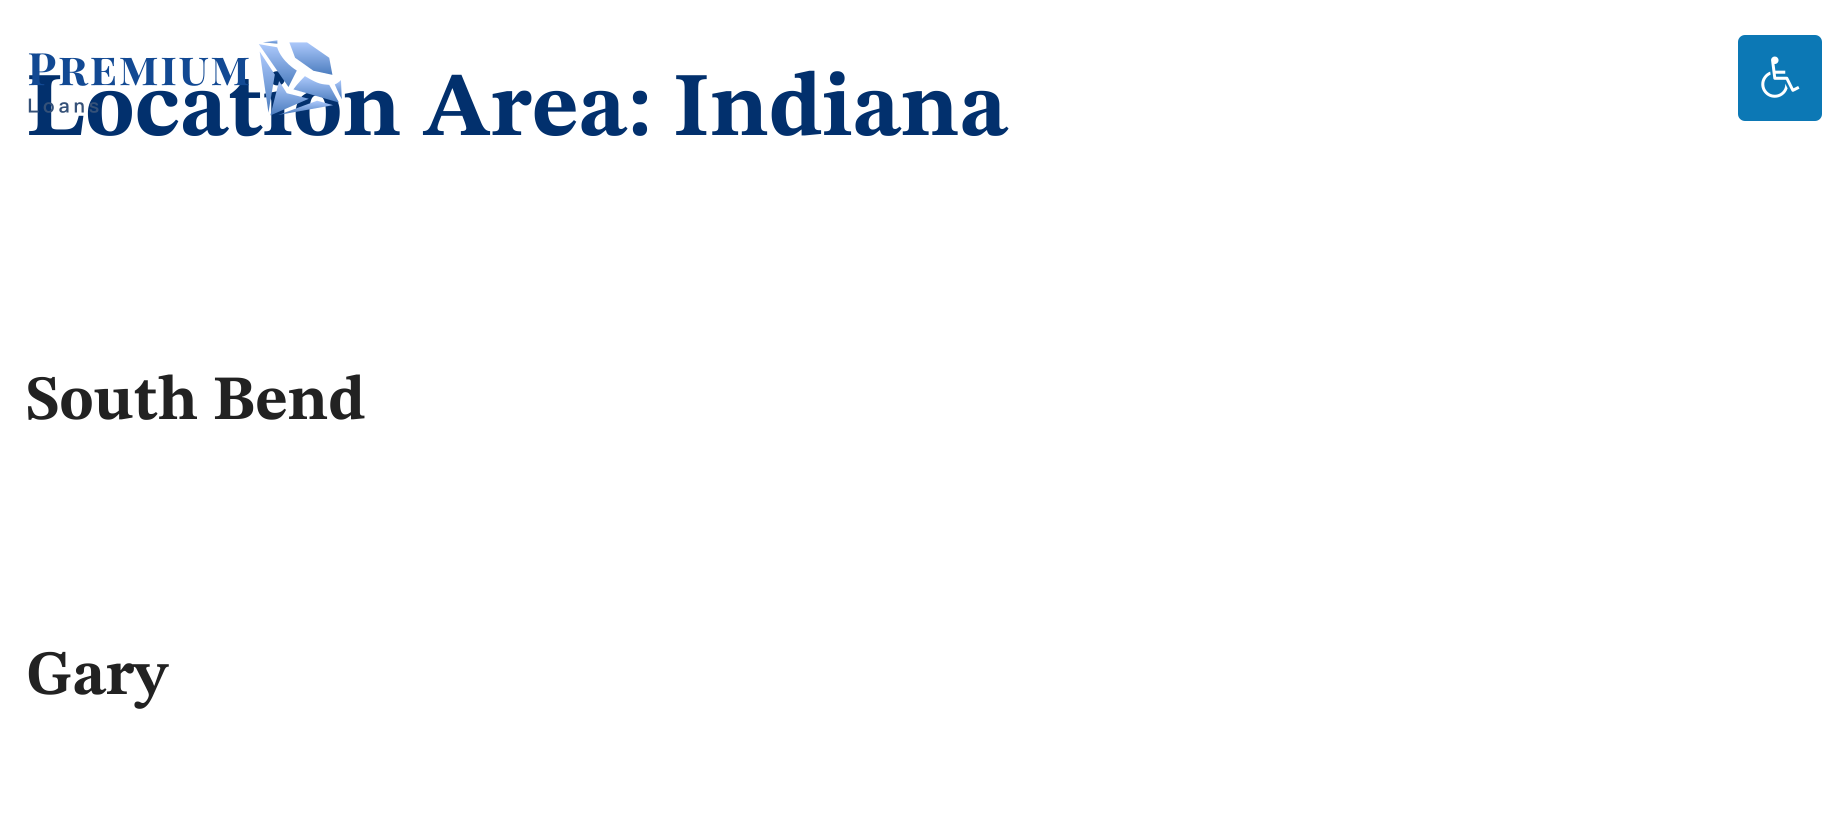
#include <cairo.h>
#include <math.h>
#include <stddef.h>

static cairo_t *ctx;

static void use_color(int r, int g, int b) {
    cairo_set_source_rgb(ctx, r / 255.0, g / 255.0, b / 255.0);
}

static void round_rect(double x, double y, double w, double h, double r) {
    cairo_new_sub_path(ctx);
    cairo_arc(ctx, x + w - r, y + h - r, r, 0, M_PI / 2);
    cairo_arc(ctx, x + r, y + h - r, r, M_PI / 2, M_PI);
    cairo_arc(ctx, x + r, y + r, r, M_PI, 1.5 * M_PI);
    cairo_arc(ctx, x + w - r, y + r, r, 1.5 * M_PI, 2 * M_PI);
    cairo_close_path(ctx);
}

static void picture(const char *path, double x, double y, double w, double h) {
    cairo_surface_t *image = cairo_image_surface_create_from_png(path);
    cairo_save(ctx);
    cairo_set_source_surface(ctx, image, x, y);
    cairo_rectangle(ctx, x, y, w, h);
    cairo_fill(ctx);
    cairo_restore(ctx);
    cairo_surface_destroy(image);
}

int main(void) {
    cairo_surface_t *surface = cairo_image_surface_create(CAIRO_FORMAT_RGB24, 1848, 822);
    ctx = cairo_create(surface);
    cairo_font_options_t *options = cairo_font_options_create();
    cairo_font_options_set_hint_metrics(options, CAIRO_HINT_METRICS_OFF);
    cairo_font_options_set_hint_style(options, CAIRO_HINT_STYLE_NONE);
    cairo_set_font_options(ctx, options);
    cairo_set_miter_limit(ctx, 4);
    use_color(255, 255, 255);
    cairo_paint(ctx);
    cairo_select_font_face(ctx, "STIX Two Text", CAIRO_FONT_SLANT_NORMAL, CAIRO_FONT_WEIGHT_BOLD);
    cairo_set_font_size(ctx, 91);
    use_color(2, 48, 109);
    cairo_move_to(ctx, 26, 135);
    cairo_show_text(ctx, "Location Area: Indiana");
    picture("img1.png", 28, 40, 314, 76);
    use_color(12, 120, 181);
    round_rect(1738, 35, 84, 86, 7);
    cairo_fill(ctx);
    picture("img2.png", 1761, 56, 39, 42);
    cairo_set_font_size(ctx, 63);
    use_color(34, 34, 34);
    cairo_move_to(ctx, 26, 419);
    cairo_show_text(ctx, "South Bend");
    cairo_move_to(ctx, 26, 694);
    cairo_show_text(ctx, "Gary");
    cairo_surface_write_to_png(surface, "result.png");
    cairo_font_options_destroy(options);
    cairo_destroy(ctx);
    cairo_surface_destroy(surface);
    return 0;
}
